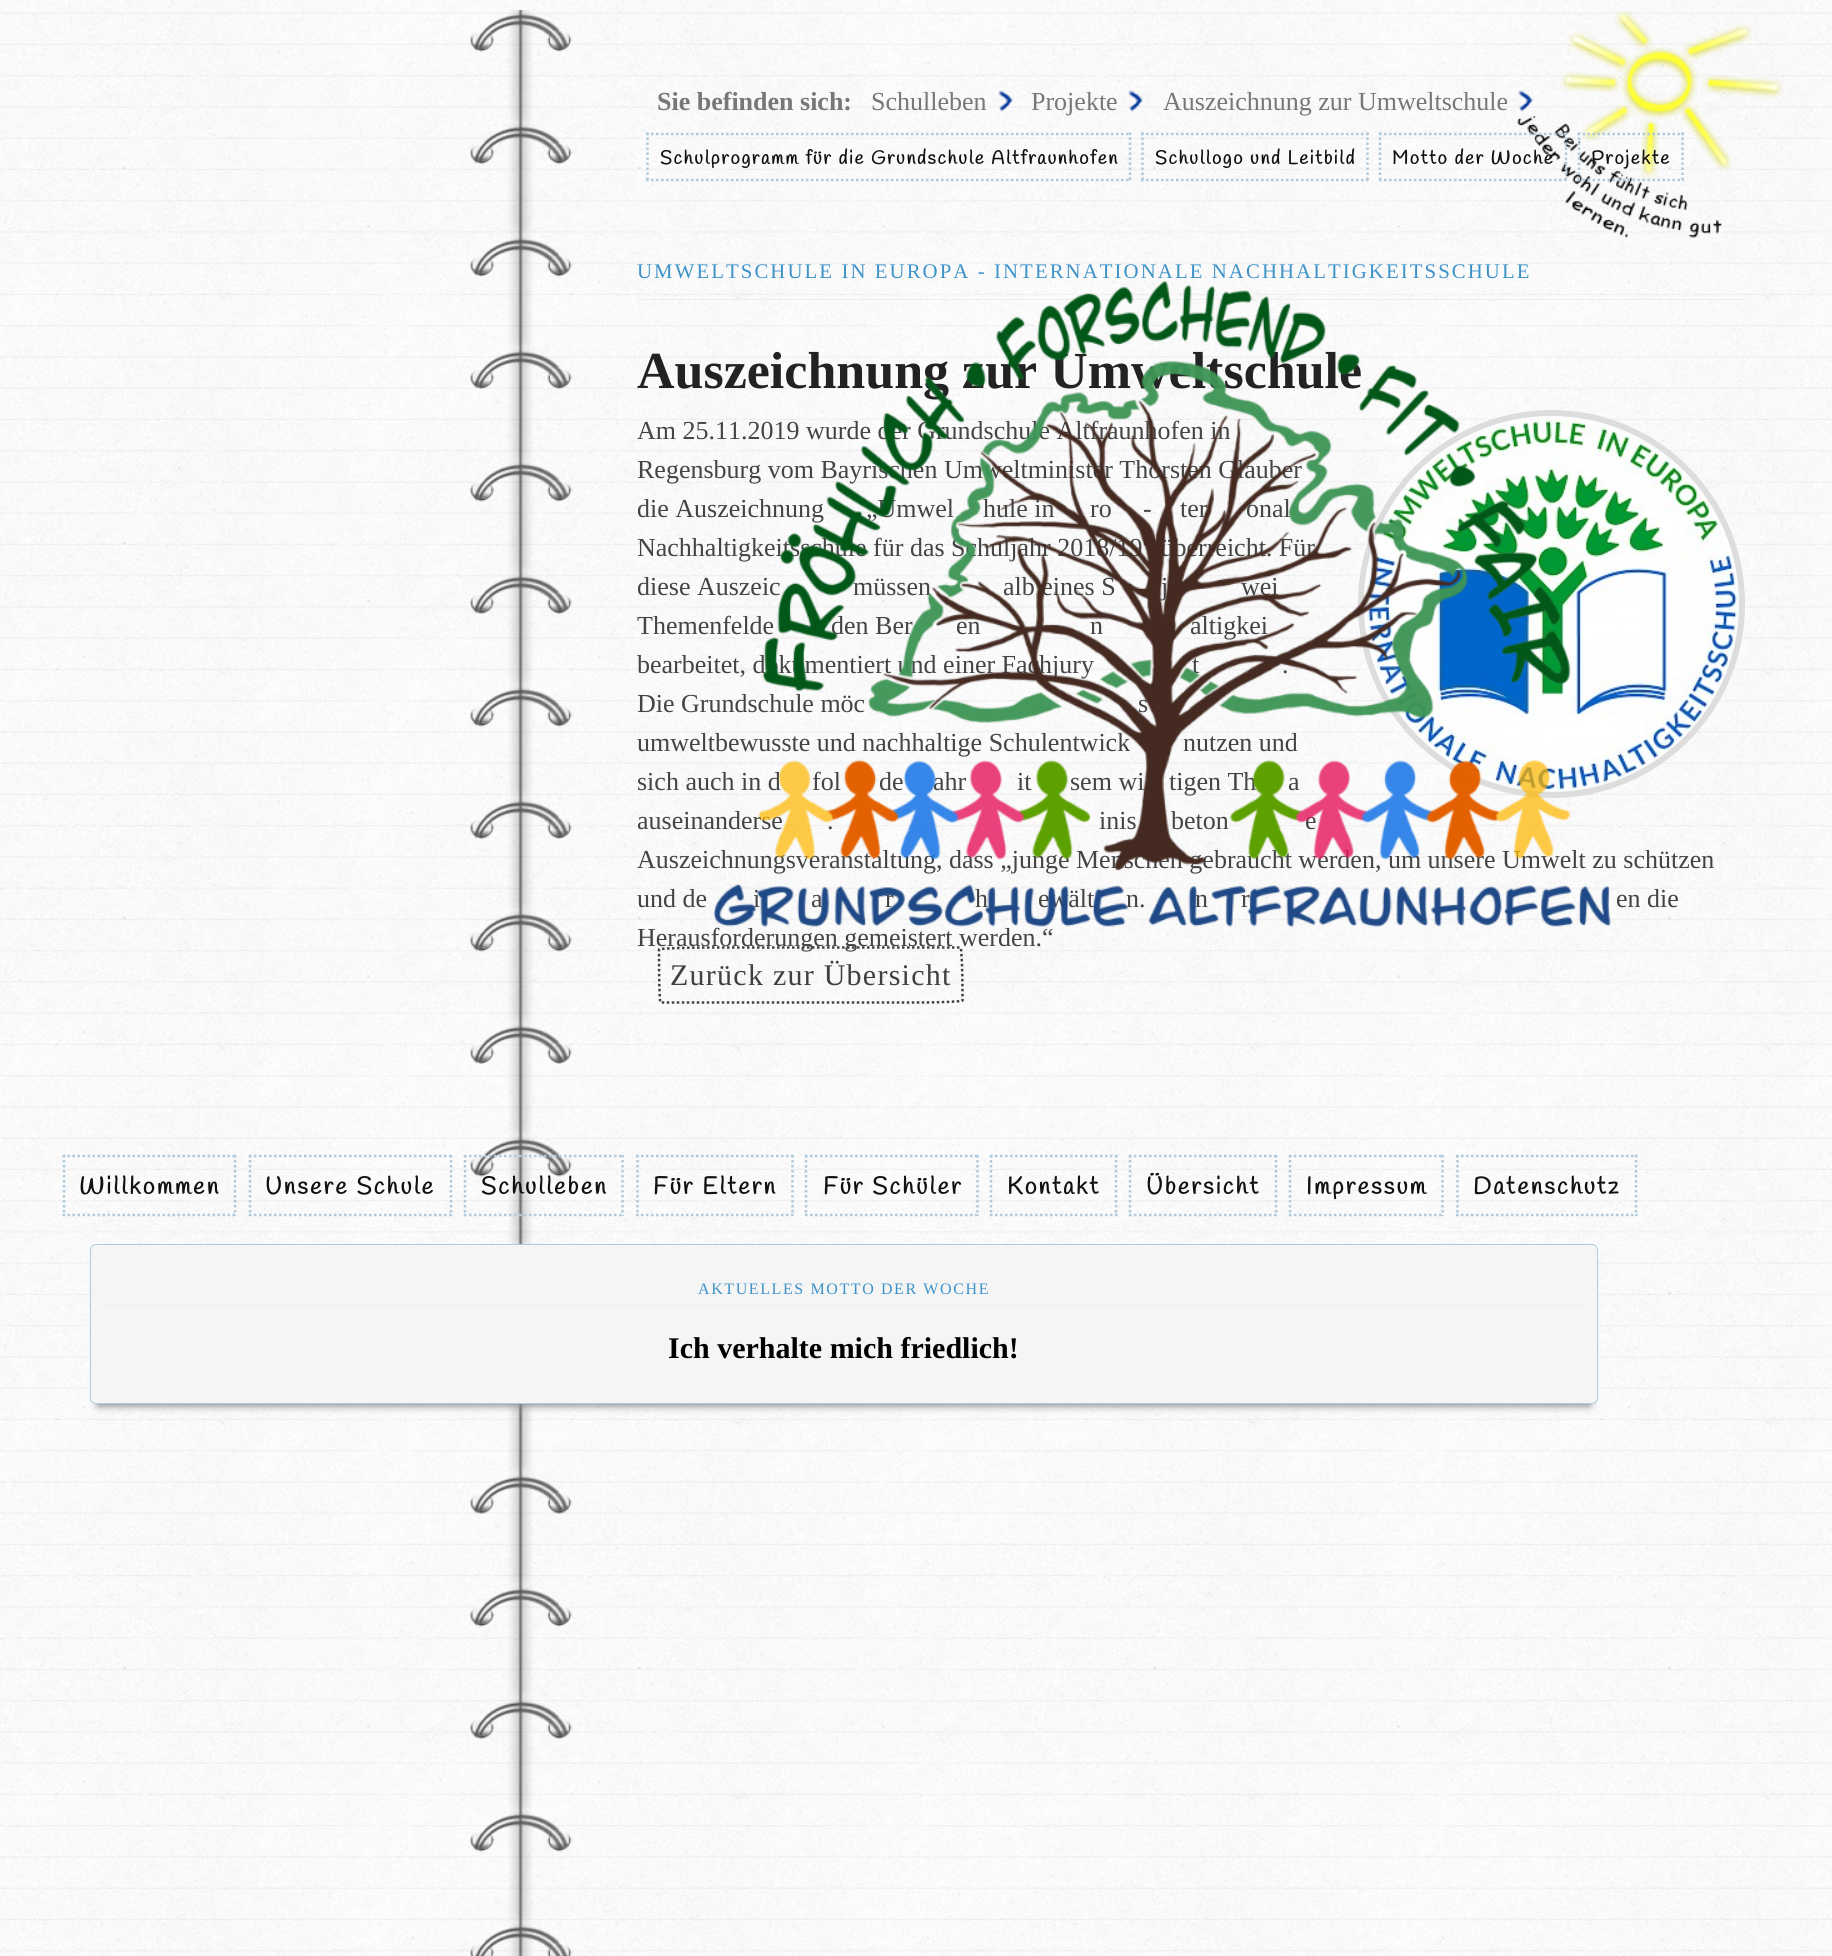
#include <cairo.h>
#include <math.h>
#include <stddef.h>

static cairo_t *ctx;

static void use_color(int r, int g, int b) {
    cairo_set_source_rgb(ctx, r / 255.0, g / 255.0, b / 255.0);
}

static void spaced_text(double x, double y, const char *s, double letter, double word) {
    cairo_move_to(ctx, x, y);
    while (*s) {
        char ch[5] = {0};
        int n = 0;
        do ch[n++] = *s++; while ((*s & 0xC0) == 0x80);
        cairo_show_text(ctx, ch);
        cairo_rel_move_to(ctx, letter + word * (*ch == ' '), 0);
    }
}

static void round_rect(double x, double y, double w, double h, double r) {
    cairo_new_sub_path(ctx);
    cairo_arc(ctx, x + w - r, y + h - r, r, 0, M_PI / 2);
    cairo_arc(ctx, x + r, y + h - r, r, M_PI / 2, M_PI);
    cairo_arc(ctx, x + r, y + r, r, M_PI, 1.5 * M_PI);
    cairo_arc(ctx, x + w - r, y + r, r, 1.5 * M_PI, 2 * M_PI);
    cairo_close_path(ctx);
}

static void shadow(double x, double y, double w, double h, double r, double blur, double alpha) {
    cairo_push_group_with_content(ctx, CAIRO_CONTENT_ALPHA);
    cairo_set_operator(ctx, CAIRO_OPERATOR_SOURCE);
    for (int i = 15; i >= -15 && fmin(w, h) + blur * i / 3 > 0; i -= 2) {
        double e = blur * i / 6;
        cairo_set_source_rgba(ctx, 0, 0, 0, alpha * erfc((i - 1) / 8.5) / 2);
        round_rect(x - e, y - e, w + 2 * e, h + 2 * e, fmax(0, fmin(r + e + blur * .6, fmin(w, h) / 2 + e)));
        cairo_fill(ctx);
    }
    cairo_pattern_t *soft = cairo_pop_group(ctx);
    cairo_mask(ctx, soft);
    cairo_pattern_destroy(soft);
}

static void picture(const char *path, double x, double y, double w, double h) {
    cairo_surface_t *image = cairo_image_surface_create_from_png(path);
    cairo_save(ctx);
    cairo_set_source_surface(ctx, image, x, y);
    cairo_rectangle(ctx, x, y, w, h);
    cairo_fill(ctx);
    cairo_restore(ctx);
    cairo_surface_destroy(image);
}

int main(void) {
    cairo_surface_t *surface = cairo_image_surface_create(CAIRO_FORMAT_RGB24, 1832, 1956);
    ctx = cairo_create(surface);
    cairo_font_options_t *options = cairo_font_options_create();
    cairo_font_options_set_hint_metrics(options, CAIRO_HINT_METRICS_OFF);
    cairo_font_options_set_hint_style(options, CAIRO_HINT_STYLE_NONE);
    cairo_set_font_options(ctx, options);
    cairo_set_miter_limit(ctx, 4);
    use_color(255, 255, 255);
    cairo_paint(ctx);
    picture("img1.png", 0, 0, 1832, 1956);
    picture("img2.png", 1517, 10, 266, 228);
    picture("img3.png", 470, 10, 103, 1946);
    cairo_select_font_face(ctx, "Liberation Serif", CAIRO_FONT_SLANT_NORMAL, CAIRO_FONT_WEIGHT_BOLD);
    cairo_set_font_size(ctx, 26);
    use_color(119, 119, 119);
    cairo_move_to(ctx, 657, 110);
    cairo_show_text(ctx, "Sie befinden sich:");
    picture("img4.png", 998, 90, 15, 22);
    cairo_select_font_face(ctx, "Liberation Serif", CAIRO_FONT_SLANT_NORMAL, CAIRO_FONT_WEIGHT_NORMAL);
    cairo_move_to(ctx, 871, 110);
    cairo_show_text(ctx, "Schulleben");
    picture("img5.png", 1128, 90, 15, 22);
    cairo_move_to(ctx, 1031, 110);
    cairo_show_text(ctx, "Projekte");
    picture("img6.png", 1518, 90, 15, 22);
    cairo_move_to(ctx, 1163, 110);
    cairo_show_text(ctx, "Auszeichnung zur Umweltschule");
    cairo_select_font_face(ctx, "Handlee", CAIRO_FONT_SLANT_NORMAL, CAIRO_FONT_WEIGHT_BOLD);
    cairo_set_font_size(ctx, 18.75);
    use_color(17, 17, 17);
    spaced_text(660, 164, "Schulprogramm für die Grundschule Altfraunhofen", 1.7, 0);
    cairo_new_path(ctx);
    cairo_move_to(ctx, 646, 134);
    cairo_line_to(ctx, 1131, 134);
    use_color(176, 202, 219);
    cairo_set_line_width(ctx, 2.5);
    cairo_set_dash(ctx, (double[]){2.5, 2.5}, 2, 0);
    cairo_stroke(ctx);
    cairo_new_path(ctx);
    cairo_move_to(ctx, 1130, 132.5);
    cairo_line_to(ctx, 1130, 181);
    cairo_stroke(ctx);
    cairo_new_path(ctx);
    cairo_move_to(ctx, 646, 180);
    cairo_line_to(ctx, 1131, 180);
    cairo_stroke(ctx);
    cairo_new_path(ctx);
    cairo_move_to(ctx, 647.5, 132.5);
    cairo_line_to(ctx, 647.5, 181);
    cairo_stroke(ctx);
    use_color(17, 17, 17);
    spaced_text(1155, 164, "Schullogo und Leitbild", 1.7, 0);
    cairo_new_path(ctx);
    cairo_move_to(ctx, 1141, 134);
    cairo_line_to(ctx, 1369, 134);
    use_color(176, 202, 219);
    cairo_stroke(ctx);
    cairo_new_path(ctx);
    cairo_move_to(ctx, 1367.5, 132.5);
    cairo_line_to(ctx, 1367.5, 181);
    cairo_stroke(ctx);
    cairo_new_path(ctx);
    cairo_move_to(ctx, 1141, 180);
    cairo_line_to(ctx, 1369, 180);
    cairo_stroke(ctx);
    cairo_new_path(ctx);
    cairo_move_to(ctx, 1142.5, 132.5);
    cairo_line_to(ctx, 1142.5, 181);
    cairo_stroke(ctx);
    use_color(17, 17, 17);
    spaced_text(1392, 164, "Motto der Woche", 1.7, 0);
    cairo_new_path(ctx);
    cairo_move_to(ctx, 1379, 134);
    cairo_line_to(ctx, 1567.5, 134);
    use_color(176, 202, 219);
    cairo_stroke(ctx);
    cairo_new_path(ctx);
    cairo_move_to(ctx, 1566, 132.5);
    cairo_line_to(ctx, 1566, 181);
    cairo_stroke(ctx);
    cairo_new_path(ctx);
    cairo_move_to(ctx, 1379, 180);
    cairo_line_to(ctx, 1567.5, 180);
    cairo_stroke(ctx);
    cairo_new_path(ctx);
    cairo_move_to(ctx, 1380, 132.5);
    cairo_line_to(ctx, 1380, 181);
    cairo_stroke(ctx);
    use_color(17, 17, 17);
    spaced_text(1591, 164, "Projekte", 1.7, 0);
    cairo_new_path(ctx);
    cairo_move_to(ctx, 1577.5, 134);
    cairo_line_to(ctx, 1684, 134);
    use_color(176, 202, 219);
    cairo_stroke(ctx);
    cairo_new_path(ctx);
    cairo_move_to(ctx, 1682.5, 132.5);
    cairo_line_to(ctx, 1682.5, 181);
    cairo_stroke(ctx);
    cairo_new_path(ctx);
    cairo_move_to(ctx, 1577.5, 180);
    cairo_line_to(ctx, 1684, 180);
    cairo_stroke(ctx);
    cairo_new_path(ctx);
    cairo_move_to(ctx, 1579, 132.5);
    cairo_line_to(ctx, 1579, 181);
    cairo_stroke(ctx);
    use_color(238, 238, 238);
    cairo_rectangle(ctx, 638, 299, 1107, 1);
    cairo_fill(ctx);
    cairo_select_font_face(ctx, "Liberation Serif", CAIRO_FONT_SLANT_NORMAL, CAIRO_FONT_WEIGHT_NORMAL);
    cairo_set_font_size(ctx, 20.8);
    use_color(61, 146, 201);
    spaced_text(637, 278, "UMWELTSCHULE IN EUROPA - INTERNATIONALE NACHHALTIGKEITSSCHULE", 2.08, 0);
    cairo_select_font_face(ctx, "Liberation Serif", CAIRO_FONT_SLANT_NORMAL, CAIRO_FONT_WEIGHT_BOLD);
    cairo_set_font_size(ctx, 52);
    use_color(34, 34, 34);
    cairo_move_to(ctx, 637, 388);
    cairo_show_text(ctx, "Auszeichnung zur Umweltschule");
    cairo_select_font_face(ctx, "Liberation Serif", CAIRO_FONT_SLANT_NORMAL, CAIRO_FONT_WEIGHT_NORMAL);
    cairo_set_font_size(ctx, 26);
    use_color(68, 68, 68);
    cairo_move_to(ctx, 637, 439);
    cairo_show_text(ctx, "Am 25.11.2019 wurde der Grundschule Altfraunhofen in");
    cairo_move_to(ctx, 637, 478);
    cairo_show_text(ctx, "Regensburg vom Bayrischen Umweltminister Thorsten Glauber");
    cairo_move_to(ctx, 637, 517);
    cairo_show_text(ctx, "die Auszeichnung");
    cairo_move_to(ctx, 866, 517);
    cairo_show_text(ctx, "„Umwel");
    cairo_move_to(ctx, 983, 517);
    cairo_show_text(ctx, "hule in");
    cairo_move_to(ctx, 1090, 517);
    cairo_show_text(ctx, "ro");
    cairo_move_to(ctx, 1143, 517);
    cairo_show_text(ctx, "-");
    cairo_move_to(ctx, 1180, 517);
    cairo_show_text(ctx, "ter");
    cairo_move_to(ctx, 1246, 517);
    cairo_show_text(ctx, "onal");
    cairo_move_to(ctx, 637, 556);
    cairo_show_text(ctx, "Nachhaltigkeitsschule für das Schuljahr 2018/19“ überreicht. Für");
    cairo_move_to(ctx, 637, 595);
    cairo_show_text(ctx, "diese Auszeic");
    cairo_move_to(ctx, 853, 595);
    cairo_show_text(ctx, "müssen");
    cairo_move_to(ctx, 1003, 595);
    cairo_show_text(ctx, "alb eines S");
    cairo_move_to(ctx, 1161, 595);
    cairo_show_text(ctx, "j");
    cairo_move_to(ctx, 1241, 595);
    cairo_show_text(ctx, "wei");
    cairo_move_to(ctx, 637, 634);
    cairo_show_text(ctx, "Themenfelde");
    cairo_move_to(ctx, 831, 634);
    cairo_show_text(ctx, "den Ber");
    cairo_move_to(ctx, 956, 634);
    cairo_show_text(ctx, "en");
    cairo_move_to(ctx, 1090, 634);
    cairo_show_text(ctx, "n");
    cairo_move_to(ctx, 1190, 634);
    cairo_show_text(ctx, "altigkei");
    cairo_move_to(ctx, 637, 673);
    cairo_show_text(ctx, "bearbeitet, dokumentiert und einer Fachjury");
    cairo_move_to(ctx, 1192, 673);
    cairo_show_text(ctx, "t");
    cairo_move_to(ctx, 1282, 673);
    cairo_show_text(ctx, ".");
    round_rect(1361, 413, 381, 382, 190.5);
    use_color(221, 221, 221);
    cairo_set_line_width(ctx, 6);
    cairo_set_dash(ctx, NULL, 0, 0);
    cairo_stroke(ctx);
    picture("img7.png", 1364, 416, 375, 375);
    use_color(68, 68, 68);
    cairo_move_to(ctx, 637, 712);
    cairo_show_text(ctx, "Die Grundschule möc");
    cairo_move_to(ctx, 1138, 712);
    cairo_show_text(ctx, "s");
    cairo_move_to(ctx, 637, 751);
    cairo_show_text(ctx, "umweltbewusste und nachhaltige Schulentwick");
    cairo_move_to(ctx, 1183, 751);
    cairo_show_text(ctx, "nutzen und");
    cairo_move_to(ctx, 637, 790);
    cairo_show_text(ctx, "sich auch in d");
    cairo_move_to(ctx, 812, 790);
    cairo_show_text(ctx, "fol");
    cairo_move_to(ctx, 879, 790);
    cairo_show_text(ctx, "de");
    cairo_move_to(ctx, 933, 790);
    cairo_show_text(ctx, "ahr");
    cairo_move_to(ctx, 1017, 790);
    cairo_show_text(ctx, "it");
    cairo_move_to(ctx, 1070, 790);
    cairo_show_text(ctx, "sem wi");
    cairo_move_to(ctx, 1169, 790);
    cairo_show_text(ctx, "tigen Th");
    cairo_move_to(ctx, 1288, 790);
    cairo_show_text(ctx, "a");
    cairo_move_to(ctx, 637, 829);
    cairo_show_text(ctx, "auseinanderse");
    cairo_move_to(ctx, 827, 829);
    cairo_show_text(ctx, ".");
    cairo_move_to(ctx, 1099, 829);
    cairo_show_text(ctx, "inis");
    cairo_move_to(ctx, 1171, 829);
    cairo_show_text(ctx, "beton");
    cairo_move_to(ctx, 1305, 829);
    cairo_show_text(ctx, "e");
    cairo_move_to(ctx, 637, 868);
    cairo_show_text(ctx, "Auszeichnungsveranstaltung, dass „junge Menschen gebraucht werden, um unsere Umwelt zu schützen");
    cairo_move_to(ctx, 637, 907);
    cairo_show_text(ctx, "und de");
    cairo_move_to(ctx, 753, 907);
    cairo_show_text(ctx, "i");
    cairo_move_to(ctx, 811, 907);
    cairo_show_text(ctx, "a");
    cairo_move_to(ctx, 885, 907);
    cairo_show_text(ctx, "r");
    cairo_move_to(ctx, 975, 907);
    cairo_show_text(ctx, "h");
    cairo_move_to(ctx, 1038, 907);
    cairo_show_text(ctx, "ewält");
    cairo_move_to(ctx, 1126, 907);
    cairo_show_text(ctx, "n.");
    cairo_move_to(ctx, 1195, 907);
    cairo_show_text(ctx, "n");
    cairo_move_to(ctx, 1241, 907);
    cairo_show_text(ctx, "r");
    cairo_move_to(ctx, 1616, 907);
    cairo_show_text(ctx, "en die");
    cairo_move_to(ctx, 637, 946);
    cairo_show_text(ctx, "Herausforderungen gemeistert werden.“");
    cairo_new_path(ctx);
    cairo_move_to(ctx, 712, 947.5);
    cairo_line_to(ctx, 960.5, 947.5);
    cairo_curve_to(ctx, 961.5, 947.5, 962.5, 968.5, 962.5, 994);
    cairo_line_to(ctx, 962.5, 1000.5);
    cairo_curve_to(ctx, 962.5, 1001.5, 941.5, 1002.5, 916, 1002.5);
    cairo_line_to(ctx, 660.5, 1002.5);
    cairo_curve_to(ctx, 659.5, 1002.5, 659, 978.5, 659, 949.5);
    cairo_curve_to(ctx, 659, 948.5, 682.5, 947.5, 712, 947.5);
    cairo_close_path(ctx);
    use_color(65, 64, 62);
    cairo_set_line_width(ctx, 2.5);
    cairo_set_dash(ctx, (double[]){2.5, 2.5}, 2, 0);
    cairo_stroke(ctx);
    cairo_set_font_size(ctx, 30);
    spaced_text(670, 985, "Zurück zur Übersicht", 1.25, 0);
    picture("img8.png", 713, 281, 899, 647);
    cairo_select_font_face(ctx, "Handlee", CAIRO_FONT_SLANT_NORMAL, CAIRO_FONT_WEIGHT_BOLD);
    cairo_set_font_size(ctx, 24);
    use_color(17, 17, 17);
    spaced_text(79, 1194, "Willkommen", 2.2, 0);
    cairo_new_path(ctx);
    cairo_move_to(ctx, 62.5, 1156);
    cairo_line_to(ctx, 236, 1156);
    use_color(176, 202, 219);
    cairo_stroke(ctx);
    cairo_new_path(ctx);
    cairo_move_to(ctx, 235, 1155);
    cairo_line_to(ctx, 235, 1216);
    cairo_stroke(ctx);
    cairo_new_path(ctx);
    cairo_move_to(ctx, 62.5, 1215);
    cairo_line_to(ctx, 236, 1215);
    cairo_stroke(ctx);
    cairo_new_path(ctx);
    cairo_move_to(ctx, 64, 1155);
    cairo_line_to(ctx, 64, 1216);
    cairo_stroke(ctx);
    use_color(17, 17, 17);
    spaced_text(265, 1194, "Unsere Schule", 2.2, 0);
    cairo_new_path(ctx);
    cairo_move_to(ctx, 249, 1156);
    cairo_line_to(ctx, 452.5, 1156);
    use_color(176, 202, 219);
    cairo_stroke(ctx);
    cairo_new_path(ctx);
    cairo_move_to(ctx, 451, 1155);
    cairo_line_to(ctx, 451, 1216);
    cairo_stroke(ctx);
    cairo_new_path(ctx);
    cairo_move_to(ctx, 249, 1215);
    cairo_line_to(ctx, 452.5, 1215);
    cairo_stroke(ctx);
    cairo_new_path(ctx);
    cairo_move_to(ctx, 250, 1155);
    cairo_line_to(ctx, 250, 1216);
    cairo_stroke(ctx);
    use_color(17, 17, 17);
    spaced_text(481, 1194, "Schulleben", 2.2, 0);
    cairo_new_path(ctx);
    cairo_move_to(ctx, 464, 1156);
    cairo_line_to(ctx, 624, 1156);
    use_color(176, 202, 219);
    cairo_stroke(ctx);
    cairo_new_path(ctx);
    cairo_move_to(ctx, 622.5, 1155);
    cairo_line_to(ctx, 622.5, 1216);
    cairo_stroke(ctx);
    cairo_new_path(ctx);
    cairo_move_to(ctx, 464, 1215);
    cairo_line_to(ctx, 624, 1215);
    cairo_stroke(ctx);
    cairo_new_path(ctx);
    cairo_move_to(ctx, 465, 1155);
    cairo_line_to(ctx, 465, 1216);
    cairo_stroke(ctx);
    use_color(17, 17, 17);
    spaced_text(653, 1194, "Für Eltern", 2.2, 0);
    cairo_new_path(ctx);
    cairo_move_to(ctx, 636, 1156);
    cairo_line_to(ctx, 794, 1156);
    use_color(176, 202, 219);
    cairo_stroke(ctx);
    cairo_new_path(ctx);
    cairo_move_to(ctx, 792.5, 1155);
    cairo_line_to(ctx, 792.5, 1216);
    cairo_stroke(ctx);
    cairo_new_path(ctx);
    cairo_move_to(ctx, 636, 1215);
    cairo_line_to(ctx, 794, 1215);
    cairo_stroke(ctx);
    cairo_new_path(ctx);
    cairo_move_to(ctx, 637.5, 1155);
    cairo_line_to(ctx, 637.5, 1216);
    cairo_stroke(ctx);
    use_color(17, 17, 17);
    spaced_text(823, 1194, "Für Schüler", 2.2, 0);
    cairo_new_path(ctx);
    cairo_move_to(ctx, 805, 1156);
    cairo_line_to(ctx, 979, 1156);
    use_color(176, 202, 219);
    cairo_stroke(ctx);
    cairo_new_path(ctx);
    cairo_move_to(ctx, 977.5, 1155);
    cairo_line_to(ctx, 977.5, 1216);
    cairo_stroke(ctx);
    cairo_new_path(ctx);
    cairo_move_to(ctx, 805, 1215);
    cairo_line_to(ctx, 979, 1215);
    cairo_stroke(ctx);
    cairo_new_path(ctx);
    cairo_move_to(ctx, 806, 1155);
    cairo_line_to(ctx, 806, 1216);
    cairo_stroke(ctx);
    use_color(17, 17, 17);
    spaced_text(1007, 1194, "Kontakt", 2.2, 0);
    cairo_new_path(ctx);
    cairo_move_to(ctx, 990, 1156);
    cairo_line_to(ctx, 1117.5, 1156);
    use_color(176, 202, 219);
    cairo_stroke(ctx);
    cairo_new_path(ctx);
    cairo_move_to(ctx, 1116, 1155);
    cairo_line_to(ctx, 1116, 1216);
    cairo_stroke(ctx);
    cairo_new_path(ctx);
    cairo_move_to(ctx, 990, 1215);
    cairo_line_to(ctx, 1117.5, 1215);
    cairo_stroke(ctx);
    cairo_new_path(ctx);
    cairo_move_to(ctx, 991, 1155);
    cairo_line_to(ctx, 991, 1216);
    cairo_stroke(ctx);
    use_color(17, 17, 17);
    spaced_text(1146, 1194, "Übersicht", 2.2, 0);
    cairo_new_path(ctx);
    cairo_move_to(ctx, 1129, 1156);
    cairo_line_to(ctx, 1277.5, 1156);
    use_color(176, 202, 219);
    cairo_stroke(ctx);
    cairo_new_path(ctx);
    cairo_move_to(ctx, 1276, 1155);
    cairo_line_to(ctx, 1276, 1216);
    cairo_stroke(ctx);
    cairo_new_path(ctx);
    cairo_move_to(ctx, 1129, 1215);
    cairo_line_to(ctx, 1277.5, 1215);
    cairo_stroke(ctx);
    cairo_new_path(ctx);
    cairo_move_to(ctx, 1130, 1155);
    cairo_line_to(ctx, 1130, 1216);
    cairo_stroke(ctx);
    use_color(17, 17, 17);
    spaced_text(1306, 1194, "Impressum", 2.2, 0);
    cairo_new_path(ctx);
    cairo_move_to(ctx, 1289, 1156);
    cairo_line_to(ctx, 1444, 1156);
    use_color(176, 202, 219);
    cairo_stroke(ctx);
    cairo_new_path(ctx);
    cairo_move_to(ctx, 1442.5, 1155);
    cairo_line_to(ctx, 1442.5, 1216);
    cairo_stroke(ctx);
    cairo_new_path(ctx);
    cairo_move_to(ctx, 1289, 1215);
    cairo_line_to(ctx, 1444, 1215);
    cairo_stroke(ctx);
    cairo_new_path(ctx);
    cairo_move_to(ctx, 1290, 1155);
    cairo_line_to(ctx, 1290, 1216);
    cairo_stroke(ctx);
    use_color(17, 17, 17);
    spaced_text(1473, 1194, "Datenschutz", 2.2, 0);
    cairo_new_path(ctx);
    cairo_move_to(ctx, 1456, 1156);
    cairo_line_to(ctx, 1637.5, 1156);
    use_color(176, 202, 219);
    cairo_stroke(ctx);
    cairo_new_path(ctx);
    cairo_move_to(ctx, 1636, 1155);
    cairo_line_to(ctx, 1636, 1216);
    cairo_stroke(ctx);
    cairo_new_path(ctx);
    cairo_move_to(ctx, 1456, 1215);
    cairo_line_to(ctx, 1637.5, 1215);
    cairo_stroke(ctx);
    cairo_new_path(ctx);
    cairo_move_to(ctx, 1457.5, 1155);
    cairo_line_to(ctx, 1457.5, 1216);
    cairo_stroke(ctx);
    use_color(136, 136, 136);
    shadow(98, 1261, 1492, 145, 0, 4, 1);
    use_color(245, 245, 245);
    round_rect(90.5, 1244.5, 1507, 159, 5.5);
    cairo_fill_preserve(ctx);
    use_color(176, 202, 219);
    cairo_set_line_width(ctx, 1);
    cairo_set_dash(ctx, NULL, 0, 0);
    cairo_stroke(ctx);
    use_color(238, 238, 238);
    cairo_rectangle(ctx, 104, 1305, 1480, 1);
    cairo_fill(ctx);
    cairo_select_font_face(ctx, "Liberation Serif", CAIRO_FONT_SLANT_NORMAL, CAIRO_FONT_WEIGHT_NORMAL);
    cairo_set_font_size(ctx, 16);
    use_color(61, 146, 201);
    spaced_text(698, 1294, "AKTUELLES MOTTO DER WOCHE", 1.6, 0);
    cairo_select_font_face(ctx, "Liberation Serif", CAIRO_FONT_SLANT_NORMAL, CAIRO_FONT_WEIGHT_BOLD);
    cairo_set_font_size(ctx, 30);
    use_color(0, 0, 0);
    cairo_move_to(ctx, 668, 1358);
    cairo_show_text(ctx, "Ich verhalte mich friedlich!");
    cairo_surface_write_to_png(surface, "result.png");
    cairo_font_options_destroy(options);
    cairo_destroy(ctx);
    cairo_surface_destroy(surface);
    return 0;
}
